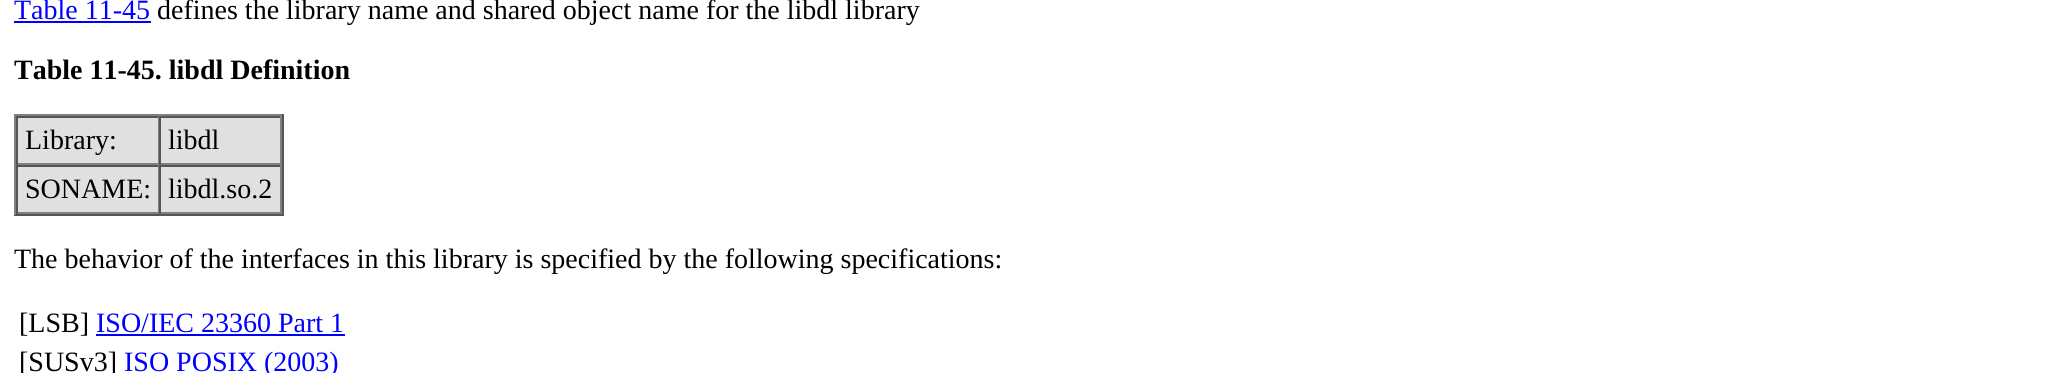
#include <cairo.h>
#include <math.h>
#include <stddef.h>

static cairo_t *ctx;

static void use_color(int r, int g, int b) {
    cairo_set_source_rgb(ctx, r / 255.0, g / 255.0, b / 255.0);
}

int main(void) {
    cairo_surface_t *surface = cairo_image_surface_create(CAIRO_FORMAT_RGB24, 2054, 373);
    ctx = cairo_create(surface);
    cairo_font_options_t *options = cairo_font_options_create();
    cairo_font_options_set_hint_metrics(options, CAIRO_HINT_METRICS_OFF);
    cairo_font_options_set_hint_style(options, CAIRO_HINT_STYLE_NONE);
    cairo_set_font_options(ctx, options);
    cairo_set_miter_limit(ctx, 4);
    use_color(255, 255, 255);
    cairo_paint(ctx);
    cairo_select_font_face(ctx, "Liberation Serif", CAIRO_FONT_SLANT_NORMAL, CAIRO_FONT_WEIGHT_NORMAL);
    cairo_set_font_size(ctx, 28);
    use_color(0, 0, 255);
    cairo_move_to(ctx, 14, 19);
    cairo_show_text(ctx, "Table 11-45");
    cairo_rectangle(ctx, 14, 21, 137, 2);
    cairo_fill(ctx);
    use_color(0, 0, 0);
    cairo_move_to(ctx, 157, 19);
    cairo_show_text(ctx, "defines the library name and shared object name for the libdl library");
    cairo_select_font_face(ctx, "Liberation Serif", CAIRO_FONT_SLANT_NORMAL, CAIRO_FONT_WEIGHT_BOLD);
    cairo_move_to(ctx, 14, 79);
    cairo_show_text(ctx, "Table 11-45. libdl Definition");
    use_color(224, 224, 224);
    cairo_rectangle(ctx, 18, 118, 262, 94);
    cairo_fill(ctx);
    use_color(128, 128, 128);
    cairo_rectangle(ctx, 14, 114, 270, 2);
    cairo_fill(ctx);
    use_color(85, 85, 85);
    cairo_rectangle(ctx, 282, 114, 2, 101);
    cairo_fill(ctx);
    cairo_rectangle(ctx, 14, 214, 270, 2);
    cairo_fill(ctx);
    use_color(128, 128, 128);
    cairo_rectangle(ctx, 14, 114, 2, 101);
    cairo_fill(ctx);
    use_color(85, 85, 85);
    cairo_rectangle(ctx, 16, 116, 266, 2);
    cairo_fill(ctx);
    use_color(128, 128, 128);
    cairo_rectangle(ctx, 158, 116, 1, 49);
    cairo_fill(ctx);
    cairo_rectangle(ctx, 16, 163, 143, 2);
    cairo_fill(ctx);
    use_color(85, 85, 85);
    cairo_rectangle(ctx, 16, 116, 2, 49);
    cairo_fill(ctx);
    cairo_select_font_face(ctx, "Liberation Serif", CAIRO_FONT_SLANT_NORMAL, CAIRO_FONT_WEIGHT_NORMAL);
    use_color(0, 0, 0);
    cairo_move_to(ctx, 25, 149);
    cairo_show_text(ctx, "Library:");
    use_color(128, 128, 128);
    cairo_rectangle(ctx, 280, 116, 2, 49);
    cairo_fill(ctx);
    cairo_rectangle(ctx, 159, 163, 123, 2);
    cairo_fill(ctx);
    use_color(85, 85, 85);
    cairo_rectangle(ctx, 159, 116, 2, 49);
    cairo_fill(ctx);
    use_color(0, 0, 0);
    cairo_move_to(ctx, 168, 149);
    cairo_show_text(ctx, "libdl");
    use_color(85, 85, 85);
    cairo_rectangle(ctx, 16, 165, 266, 2);
    cairo_fill(ctx);
    use_color(128, 128, 128);
    cairo_rectangle(ctx, 158, 165, 1, 49);
    cairo_fill(ctx);
    cairo_rectangle(ctx, 16, 212, 143, 2);
    cairo_fill(ctx);
    use_color(85, 85, 85);
    cairo_rectangle(ctx, 16, 165, 2, 49);
    cairo_fill(ctx);
    use_color(0, 0, 0);
    cairo_move_to(ctx, 25, 198);
    cairo_show_text(ctx, "SONAME:");
    use_color(128, 128, 128);
    cairo_rectangle(ctx, 280, 165, 2, 49);
    cairo_fill(ctx);
    cairo_rectangle(ctx, 159, 212, 123, 2);
    cairo_fill(ctx);
    use_color(85, 85, 85);
    cairo_rectangle(ctx, 159, 165, 2, 49);
    cairo_fill(ctx);
    use_color(0, 0, 0);
    cairo_move_to(ctx, 168, 198);
    cairo_show_text(ctx, "libdl.so.2");
    cairo_move_to(ctx, 14, 268);
    cairo_show_text(ctx, "The behavior of the interfaces in this library is specified by the following specifications:");
    cairo_move_to(ctx, 19, 332);
    cairo_show_text(ctx, "[LSB]");
    use_color(0, 0, 255);
    cairo_move_to(ctx, 96, 332);
    cairo_show_text(ctx, "ISO/IEC 23360 Part 1");
    cairo_rectangle(ctx, 96, 334, 249, 2);
    cairo_fill(ctx);
    use_color(0, 0, 0);
    cairo_move_to(ctx, 19, 371);
    cairo_show_text(ctx, "[SUSv3]");
    use_color(0, 0, 255);
    cairo_move_to(ctx, 124, 371);
    cairo_show_text(ctx, "ISO POSIX (2003)");
    cairo_surface_write_to_png(surface, "result.png");
    cairo_font_options_destroy(options);
    cairo_destroy(ctx);
    cairo_surface_destroy(surface);
    return 0;
}
